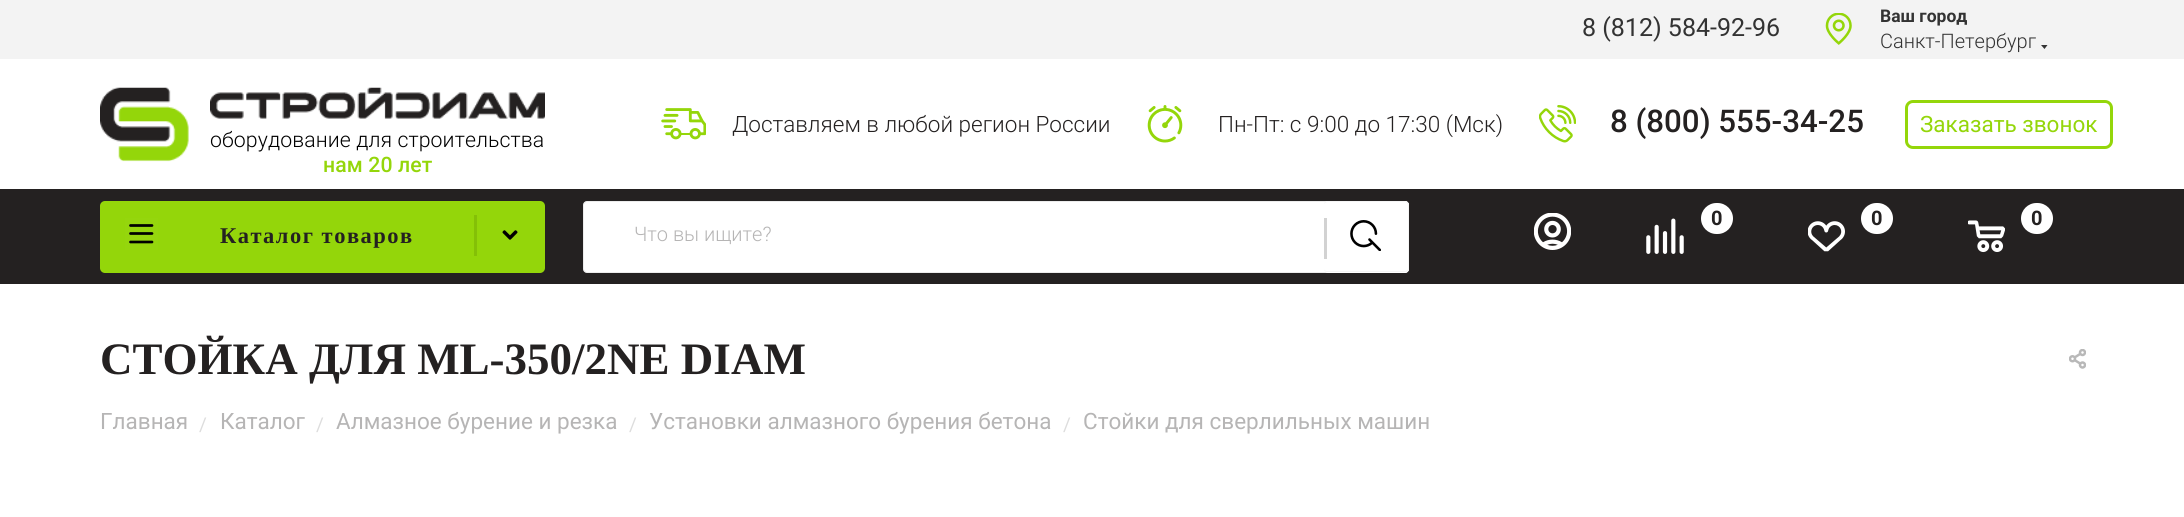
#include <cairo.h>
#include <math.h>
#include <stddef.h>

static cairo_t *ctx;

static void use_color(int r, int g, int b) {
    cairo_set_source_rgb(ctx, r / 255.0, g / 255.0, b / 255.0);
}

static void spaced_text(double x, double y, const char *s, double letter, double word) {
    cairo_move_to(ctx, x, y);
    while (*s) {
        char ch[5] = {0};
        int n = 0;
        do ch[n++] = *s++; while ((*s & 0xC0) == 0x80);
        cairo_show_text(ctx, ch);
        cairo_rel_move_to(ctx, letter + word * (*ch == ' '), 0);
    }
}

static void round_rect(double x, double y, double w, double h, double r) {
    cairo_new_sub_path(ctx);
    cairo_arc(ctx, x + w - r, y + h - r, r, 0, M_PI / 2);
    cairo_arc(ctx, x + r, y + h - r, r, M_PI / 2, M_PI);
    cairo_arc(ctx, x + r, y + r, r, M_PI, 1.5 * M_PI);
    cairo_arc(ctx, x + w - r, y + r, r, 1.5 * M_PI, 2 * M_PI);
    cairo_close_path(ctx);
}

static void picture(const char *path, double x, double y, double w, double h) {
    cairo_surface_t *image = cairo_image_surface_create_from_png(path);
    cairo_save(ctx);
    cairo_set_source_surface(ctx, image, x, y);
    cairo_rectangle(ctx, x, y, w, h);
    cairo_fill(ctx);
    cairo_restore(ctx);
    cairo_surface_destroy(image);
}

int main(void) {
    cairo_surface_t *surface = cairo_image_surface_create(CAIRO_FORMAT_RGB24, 2184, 517);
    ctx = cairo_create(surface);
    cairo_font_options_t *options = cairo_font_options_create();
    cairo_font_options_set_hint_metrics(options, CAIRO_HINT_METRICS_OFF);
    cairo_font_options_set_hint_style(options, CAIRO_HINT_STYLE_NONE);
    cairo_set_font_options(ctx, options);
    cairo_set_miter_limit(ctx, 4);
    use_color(255, 255, 255);
    cairo_paint(ctx);
    use_color(243, 243, 243);
    cairo_rectangle(ctx, 0, 0, 2184, 59);
    cairo_fill(ctx);
    cairo_select_font_face(ctx, "Roboto", CAIRO_FONT_SLANT_NORMAL, CAIRO_FONT_WEIGHT_NORMAL);
    cairo_set_font_size(ctx, 25);
    use_color(51, 51, 51);
    cairo_move_to(ctx, 1582, 36);
    cairo_show_text(ctx, "8 (812) 584-92-96");
    picture("img1.png", 1825, 13, 27, 32);
    cairo_select_font_face(ctx, "Roboto", CAIRO_FONT_SLANT_NORMAL, CAIRO_FONT_WEIGHT_BOLD);
    cairo_set_font_size(ctx, 17.5);
    cairo_move_to(ctx, 1880, 22);
    cairo_show_text(ctx, "Ваш город");
    cairo_select_font_face(ctx, "Roboto Light", CAIRO_FONT_SLANT_NORMAL, CAIRO_FONT_WEIGHT_NORMAL);
    cairo_set_font_size(ctx, 20);
    cairo_move_to(ctx, 1880, 48);
    cairo_show_text(ctx, "Санкт-Петербург");
    cairo_set_fill_rule(ctx, CAIRO_FILL_RULE_EVEN_ODD);
    cairo_new_path(ctx);
    cairo_move_to(ctx, 2041, 45);
    cairo_line_to(ctx, 2047.5, 45);
    cairo_line_to(ctx, 2044.5, 49);
    cairo_close_path(ctx);
    cairo_fill(ctx);
    picture("img2.png", 661, 108, 45, 32);
    cairo_set_font_size(ctx, 22.5);
    use_color(36, 33, 33);
    cairo_move_to(ctx, 732, 132);
    cairo_show_text(ctx, "Доставляем в любой регион России");
    picture("img3.png", 1147, 105, 36, 38);
    cairo_move_to(ctx, 1218, 132);
    cairo_show_text(ctx, "Пн-Пт: с 9:00 до 17:30 (Мск)");
    picture("img4.png", 1539, 105, 37, 38);
    cairo_select_font_face(ctx, "Roboto Medium", CAIRO_FONT_SLANT_NORMAL, CAIRO_FONT_WEIGHT_NORMAL);
    cairo_set_font_size(ctx, 31.25);
    cairo_move_to(ctx, 1610, 132);
    cairo_show_text(ctx, "8 (800) 555-34-25");
    round_rect(1906.5, 101.5, 205, 46, 6.5);
    use_color(148, 214, 10);
    cairo_set_line_width(ctx, 3);
    cairo_stroke(ctx);
    cairo_select_font_face(ctx, "Roboto", CAIRO_FONT_SLANT_NORMAL, CAIRO_FONT_WEIGHT_NORMAL);
    cairo_set_font_size(ctx, 22.5);
    cairo_move_to(ctx, 1920, 132);
    cairo_show_text(ctx, "Заказать звонок");
    picture("img5.png", 100, 87, 89, 75);
    picture("img6.png", 210, 87, 335, 32);
    cairo_select_font_face(ctx, "Roboto Light", CAIRO_FONT_SLANT_NORMAL, CAIRO_FONT_WEIGHT_NORMAL);
    cairo_set_font_size(ctx, 21.25);
    use_color(0, 0, 0);
    spaced_text(210, 147, "оборудование для строительства", 0.1, 0);
    cairo_select_font_face(ctx, "Roboto Medium", CAIRO_FONT_SLANT_NORMAL, CAIRO_FONT_WEIGHT_NORMAL);
    use_color(148, 214, 10);
    spaced_text(323, 172, "нам 20 лет", 0.1, 0);
    use_color(36, 33, 33);
    cairo_rectangle(ctx, 0, 189, 2184, 95);
    cairo_fill(ctx);
    picture("img7.png", 1534, 213, 37, 37);
    picture("img8.png", 1646, 218, 38, 36);
    use_color(255, 255, 255);
    round_rect(1701, 203, 32, 31, 15.5);
    cairo_fill(ctx);
    cairo_select_font_face(ctx, "Roboto", CAIRO_FONT_SLANT_NORMAL, CAIRO_FONT_WEIGHT_BOLD);
    cairo_set_font_size(ctx, 20);
    use_color(36, 33, 33);
    cairo_move_to(ctx, 1711, 225);
    cairo_show_text(ctx, "0");
    use_color(255, 255, 255);
    round_rect(1861, 203, 32, 31, 15.5);
    cairo_fill(ctx);
    use_color(36, 33, 33);
    cairo_move_to(ctx, 1871, 225);
    cairo_show_text(ctx, "0");
    picture("img9.png", 1808, 221, 37, 31);
    use_color(255, 255, 255);
    round_rect(2021, 203, 32, 31, 15.5);
    cairo_fill(ctx);
    use_color(36, 33, 33);
    cairo_move_to(ctx, 2031, 225);
    cairo_show_text(ctx, "0");
    picture("img10.png", 1968, 220, 37, 33);
    use_color(148, 214, 10);
    round_rect(100, 201, 445, 72, 5);
    cairo_fill(ctx);
    use_color(149, 214, 13);
    cairo_rectangle(ctx, 125, 218, 33, 32);
    cairo_fill(ctx);
    cairo_new_path(ctx);
    cairo_move_to(ctx, 130.5, 225.5);
    cairo_line_to(ctx, 152, 225.5);
    cairo_move_to(ctx, 130.5, 233.5);
    cairo_line_to(ctx, 152, 233.5);
    cairo_move_to(ctx, 130.5, 242);
    cairo_line_to(ctx, 152, 242);
    use_color(0, 0, 0);
    cairo_set_line_width(ctx, 2.7);
    cairo_set_line_cap(ctx, CAIRO_LINE_CAP_ROUND);
    cairo_set_line_join(ctx, CAIRO_LINE_JOIN_ROUND);
    cairo_stroke(ctx);
    cairo_select_font_face(ctx, "Liberation Serif", CAIRO_FONT_SLANT_NORMAL, CAIRO_FONT_WEIGHT_BOLD);
    cairo_set_font_size(ctx, 22.5);
    use_color(36, 33, 33);
    spaced_text(220, 243, "Каталог товаров", 1.5, 0);
    use_color(132, 192, 7);
    cairo_rectangle(ctx, 474, 215, 3, 41);
    cairo_fill(ctx);
    picture("img11.png", 502, 230, 16, 10);
    use_color(255, 255, 255);
    round_rect(583.5, 201.5, 825, 71, 3.5);
    cairo_fill_preserve(ctx);
    use_color(236, 236, 236);
    cairo_set_line_width(ctx, 1);
    cairo_set_line_cap(ctx, CAIRO_LINE_CAP_BUTT);
    cairo_set_line_join(ctx, CAIRO_LINE_JOIN_MITER);
    cairo_stroke(ctx);
    cairo_select_font_face(ctx, "Roboto Light", CAIRO_FONT_SLANT_NORMAL, CAIRO_FONT_WEIGHT_NORMAL);
    cairo_set_font_size(ctx, 20);
    use_color(182, 181, 181);
    cairo_move_to(ctx, 634, 241);
    cairo_show_text(ctx, "Что вы ищите?");
    use_color(255, 255, 255);
    round_rect(1324, 201, 85, 72, 4);
    cairo_fill(ctx);
    use_color(245, 245, 245);
    cairo_new_path(ctx);
    cairo_move_to(ctx, 1328, 201);
    cairo_line_to(ctx, 1405, 201);
    cairo_curve_to(ctx, 1407, 201, 1409, 203, 1409, 205);
    cairo_line_to(ctx, 1409, 269);
    cairo_curve_to(ctx, 1409, 271, 1407, 272, 1405, 272);
    cairo_line_to(ctx, 1328, 272);
    cairo_curve_to(ctx, 1325, 272, 1324, 271, 1324, 269);
    cairo_line_to(ctx, 1324, 205);
    cairo_curve_to(ctx, 1324, 203, 1325, 201, 1328, 201);
    cairo_close_path(ctx);
    cairo_move_to(ctx, 1328, 202);
    cairo_line_to(ctx, 1405, 202);
    cairo_curve_to(ctx, 1406, 202, 1408, 204, 1408, 205);
    cairo_line_to(ctx, 1408, 269);
    cairo_curve_to(ctx, 1408, 270, 1406, 271, 1405, 271);
    cairo_line_to(ctx, 1328, 271);
    cairo_curve_to(ctx, 1325, 271, 1324, 270, 1324, 269);
    cairo_line_to(ctx, 1324, 205);
    cairo_curve_to(ctx, 1324, 204, 1325, 202, 1328, 202);
    cairo_close_path(ctx);
    cairo_fill(ctx);
    use_color(210, 210, 210);
    cairo_rectangle(ctx, 1324, 218, 3, 41);
    cairo_fill(ctx);
    picture("img12.png", 1350, 220, 31, 31);
    cairo_select_font_face(ctx, "Liberation Serif", CAIRO_FONT_SLANT_NORMAL, CAIRO_FONT_WEIGHT_BOLD);
    cairo_set_font_size(ctx, 45);
    use_color(36, 33, 33);
    cairo_move_to(ctx, 100, 374);
    cairo_show_text(ctx, "СТОЙКА ДЛЯ ML-350/2NE DIAM");
    picture("img13.png", 2069, 349, 17, 20);
    cairo_select_font_face(ctx, "Roboto", CAIRO_FONT_SLANT_NORMAL, CAIRO_FONT_WEIGHT_NORMAL);
    cairo_set_font_size(ctx, 22.5);
    use_color(182, 181, 181);
    cairo_move_to(ctx, 100, 429);
    cairo_show_text(ctx, "Главная");
    cairo_set_font_size(ctx, 19);
    use_color(221, 221, 221);
    cairo_move_to(ctx, 199, 431);
    cairo_show_text(ctx, "/");
    cairo_set_font_size(ctx, 22.5);
    use_color(182, 181, 181);
    cairo_move_to(ctx, 220, 429);
    cairo_show_text(ctx, "Каталог");
    cairo_set_font_size(ctx, 19);
    use_color(221, 221, 221);
    cairo_move_to(ctx, 316, 431);
    cairo_show_text(ctx, "/");
    cairo_set_font_size(ctx, 22.5);
    use_color(182, 181, 181);
    cairo_move_to(ctx, 336, 429);
    cairo_show_text(ctx, "Алмазное бурение и резка");
    cairo_set_font_size(ctx, 19);
    use_color(221, 221, 221);
    cairo_move_to(ctx, 629, 431);
    cairo_show_text(ctx, "/");
    cairo_set_font_size(ctx, 22.5);
    use_color(182, 181, 181);
    cairo_move_to(ctx, 649, 429);
    cairo_show_text(ctx, "Установки алмазного бурения бетона");
    cairo_set_font_size(ctx, 19);
    use_color(221, 221, 221);
    cairo_move_to(ctx, 1063, 431);
    cairo_show_text(ctx, "/");
    cairo_set_font_size(ctx, 22.5);
    use_color(182, 181, 181);
    cairo_move_to(ctx, 1083, 429);
    cairo_show_text(ctx, "Стойки для сверлильных машин");
    cairo_surface_write_to_png(surface, "result.png");
    cairo_font_options_destroy(options);
    cairo_destroy(ctx);
    cairo_surface_destroy(surface);
    return 0;
}
